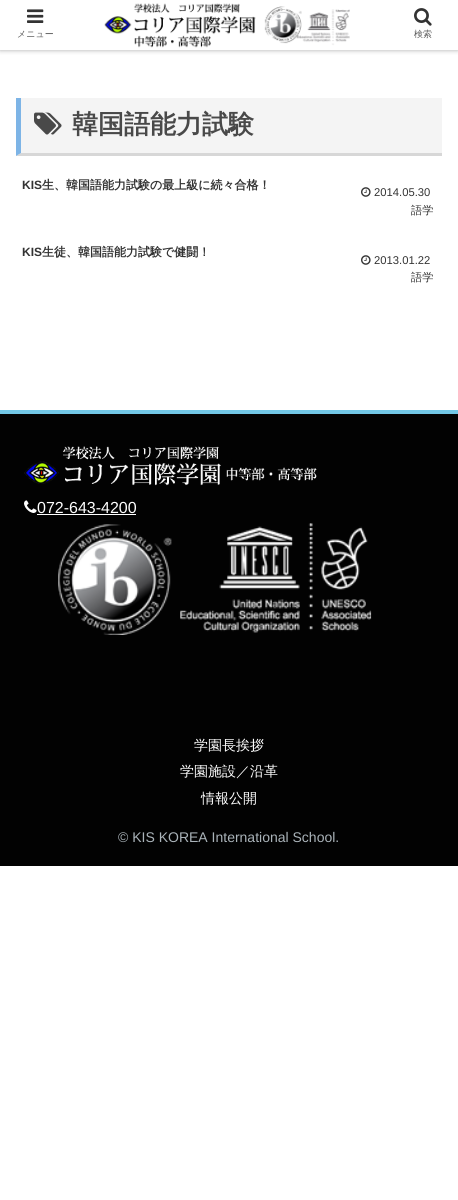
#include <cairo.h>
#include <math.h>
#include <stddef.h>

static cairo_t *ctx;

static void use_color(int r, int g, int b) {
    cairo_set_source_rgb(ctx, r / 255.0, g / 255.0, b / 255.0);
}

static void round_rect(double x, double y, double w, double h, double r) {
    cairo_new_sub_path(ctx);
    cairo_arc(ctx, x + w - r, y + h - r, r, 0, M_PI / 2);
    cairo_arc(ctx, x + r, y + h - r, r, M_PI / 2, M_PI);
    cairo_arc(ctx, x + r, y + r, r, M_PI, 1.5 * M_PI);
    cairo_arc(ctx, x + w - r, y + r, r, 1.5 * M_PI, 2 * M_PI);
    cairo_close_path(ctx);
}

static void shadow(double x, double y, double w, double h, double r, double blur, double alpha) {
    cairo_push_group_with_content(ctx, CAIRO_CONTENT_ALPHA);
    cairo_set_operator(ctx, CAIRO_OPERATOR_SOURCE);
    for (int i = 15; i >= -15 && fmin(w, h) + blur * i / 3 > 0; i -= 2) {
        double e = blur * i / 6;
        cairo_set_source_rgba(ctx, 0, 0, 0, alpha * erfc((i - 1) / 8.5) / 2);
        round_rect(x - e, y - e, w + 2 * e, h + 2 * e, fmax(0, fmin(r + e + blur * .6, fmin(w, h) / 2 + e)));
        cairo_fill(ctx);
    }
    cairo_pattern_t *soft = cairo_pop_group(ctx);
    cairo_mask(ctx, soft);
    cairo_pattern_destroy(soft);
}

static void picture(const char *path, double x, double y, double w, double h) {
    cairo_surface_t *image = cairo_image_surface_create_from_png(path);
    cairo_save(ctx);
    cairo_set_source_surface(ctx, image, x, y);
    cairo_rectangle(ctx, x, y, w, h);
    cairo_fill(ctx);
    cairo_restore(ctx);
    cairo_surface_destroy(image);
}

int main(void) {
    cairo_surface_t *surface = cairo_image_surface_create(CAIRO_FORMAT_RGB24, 458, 1200);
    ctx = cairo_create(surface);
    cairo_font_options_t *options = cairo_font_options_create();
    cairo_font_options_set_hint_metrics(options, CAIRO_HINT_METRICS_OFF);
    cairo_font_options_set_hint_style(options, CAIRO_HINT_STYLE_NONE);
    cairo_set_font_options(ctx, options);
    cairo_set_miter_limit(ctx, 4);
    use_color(255, 255, 255);
    cairo_paint(ctx);
    cairo_save(ctx);
    cairo_rectangle(ctx, 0, 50, 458, 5);
    cairo_clip(ctx);
    use_color(169, 169, 169);
    shadow(0, 0, 458, 50, 0, 2.5, 1);
    cairo_restore(ctx);
    picture("img1.png", 27, 9, 17, 14);
    cairo_select_font_face(ctx, "WenQuanYi Zen Hei Medium", CAIRO_FONT_SLANT_NORMAL, CAIRO_FONT_WEIGHT_NORMAL);
    cairo_set_font_size(ctx, 9);
    use_color(92, 92, 92);
    cairo_move_to(ctx, 17, 37);
    cairo_show_text(ctx, "メニュー");
    picture("img2.png", 104, 3, 246, 45);
    picture("img3.png", 414, 8, 18, 18);
    cairo_move_to(ctx, 414, 37);
    cairo_show_text(ctx, "検索");
    use_color(244, 244, 244);
    cairo_rectangle(ctx, 16, 98, 426, 58);
    cairo_fill(ctx);
    use_color(215, 215, 215);
    cairo_new_path(ctx);
    cairo_move_to(ctx, 442, 156);
    cairo_line_to(ctx, 16, 156);
    cairo_line_to(ctx, 21, 153);
    cairo_line_to(ctx, 442, 153);
    cairo_close_path(ctx);
    cairo_fill(ctx);
    use_color(125, 180, 230);
    cairo_new_path(ctx);
    cairo_move_to(ctx, 16, 156);
    cairo_line_to(ctx, 16, 98);
    cairo_line_to(ctx, 21, 98);
    cairo_line_to(ctx, 21, 153);
    cairo_close_path(ctx);
    cairo_fill(ctx);
    picture("img4.png", 34, 112, 28, 23);
    cairo_select_font_face(ctx, "WenQuanYi Zen Hei", CAIRO_FONT_SLANT_NORMAL, CAIRO_FONT_WEIGHT_BOLD);
    cairo_set_font_size(ctx, 26);
    use_color(73, 73, 73);
    cairo_move_to(ctx, 72, 133);
    cairo_show_text(ctx, "韓国語能力試験");
    cairo_select_font_face(ctx, "Liberation Sans", CAIRO_FONT_SLANT_NORMAL, CAIRO_FONT_WEIGHT_BOLD);
    cairo_set_font_size(ctx, 12);
    use_color(51, 51, 51);
    cairo_move_to(ctx, 22, 189);
    cairo_show_text(ctx, "KIS");
    cairo_select_font_face(ctx, "WenQuanYi Zen Hei", CAIRO_FONT_SLANT_NORMAL, CAIRO_FONT_WEIGHT_BOLD);
    cairo_move_to(ctx, 42, 189);
    cairo_show_text(ctx, "生、韓国語能力試験の最上級に続々合格！");
    picture("img5.png", 361, 187, 10, 10);
    cairo_select_font_face(ctx, "Liberation Sans", CAIRO_FONT_SLANT_NORMAL, CAIRO_FONT_WEIGHT_NORMAL);
    cairo_set_font_size(ctx, 11.25);
    cairo_move_to(ctx, 374, 196);
    cairo_show_text(ctx, "2014.05.30");
    cairo_select_font_face(ctx, "WenQuanYi Zen Hei Medium", CAIRO_FONT_SLANT_NORMAL, CAIRO_FONT_WEIGHT_NORMAL);
    cairo_move_to(ctx, 411, 214);
    cairo_show_text(ctx, "語学");
    cairo_select_font_face(ctx, "Liberation Sans", CAIRO_FONT_SLANT_NORMAL, CAIRO_FONT_WEIGHT_BOLD);
    cairo_set_font_size(ctx, 12);
    cairo_move_to(ctx, 22, 256);
    cairo_show_text(ctx, "KIS");
    cairo_select_font_face(ctx, "WenQuanYi Zen Hei", CAIRO_FONT_SLANT_NORMAL, CAIRO_FONT_WEIGHT_BOLD);
    cairo_move_to(ctx, 42, 256);
    cairo_show_text(ctx, "生徒、韓国語能力試験で健闘！");
    picture("img5.png", 361, 255, 10, 10);
    cairo_select_font_face(ctx, "Liberation Sans", CAIRO_FONT_SLANT_NORMAL, CAIRO_FONT_WEIGHT_NORMAL);
    cairo_set_font_size(ctx, 11.25);
    cairo_move_to(ctx, 374, 264);
    cairo_show_text(ctx, "2013.01.22");
    cairo_select_font_face(ctx, "WenQuanYi Zen Hei Medium", CAIRO_FONT_SLANT_NORMAL, CAIRO_FONT_WEIGHT_NORMAL);
    cairo_move_to(ctx, 411, 281);
    cairo_show_text(ctx, "語学");
    use_color(2, 2, 2);
    cairo_rectangle(ctx, 0, 414, 458, 452);
    cairo_fill(ctx);
    use_color(114, 199, 230);
    cairo_rectangle(ctx, 0, 410, 458, 4);
    cairo_fill(ctx);
    picture("img6.png", 24, 446, 293, 40);
    picture("img7.png", 24, 500, 13, 13);
    cairo_select_font_face(ctx, "Liberation Sans", CAIRO_FONT_SLANT_NORMAL, CAIRO_FONT_WEIGHT_NORMAL);
    cairo_set_font_size(ctx, 16);
    use_color(255, 255, 255);
    cairo_move_to(ctx, 37, 513);
    cairo_show_text(ctx, "072-643-4200");
    cairo_rectangle(ctx, 37, 514, 99, 1);
    cairo_fill(ctx);
    picture("img8.png", 58, 523, 314, 112);
    cairo_select_font_face(ctx, "WenQuanYi Zen Hei Medium", CAIRO_FONT_SLANT_NORMAL, CAIRO_FONT_WEIGHT_NORMAL);
    cairo_set_font_size(ctx, 14);
    cairo_move_to(ctx, 194, 750);
    cairo_show_text(ctx, "学園長挨拶");
    cairo_move_to(ctx, 180, 776);
    cairo_show_text(ctx, "学園施設／沿革");
    cairo_move_to(ctx, 201, 803);
    cairo_show_text(ctx, "情報公開");
    cairo_select_font_face(ctx, "Liberation Sans", CAIRO_FONT_SLANT_NORMAL, CAIRO_FONT_WEIGHT_NORMAL);
    use_color(170, 179, 185);
    cairo_move_to(ctx, 118, 842);
    cairo_show_text(ctx, "© KIS KOREA International School.");
    cairo_surface_write_to_png(surface, "result.png");
    cairo_font_options_destroy(options);
    cairo_destroy(ctx);
    cairo_surface_destroy(surface);
    return 0;
}
